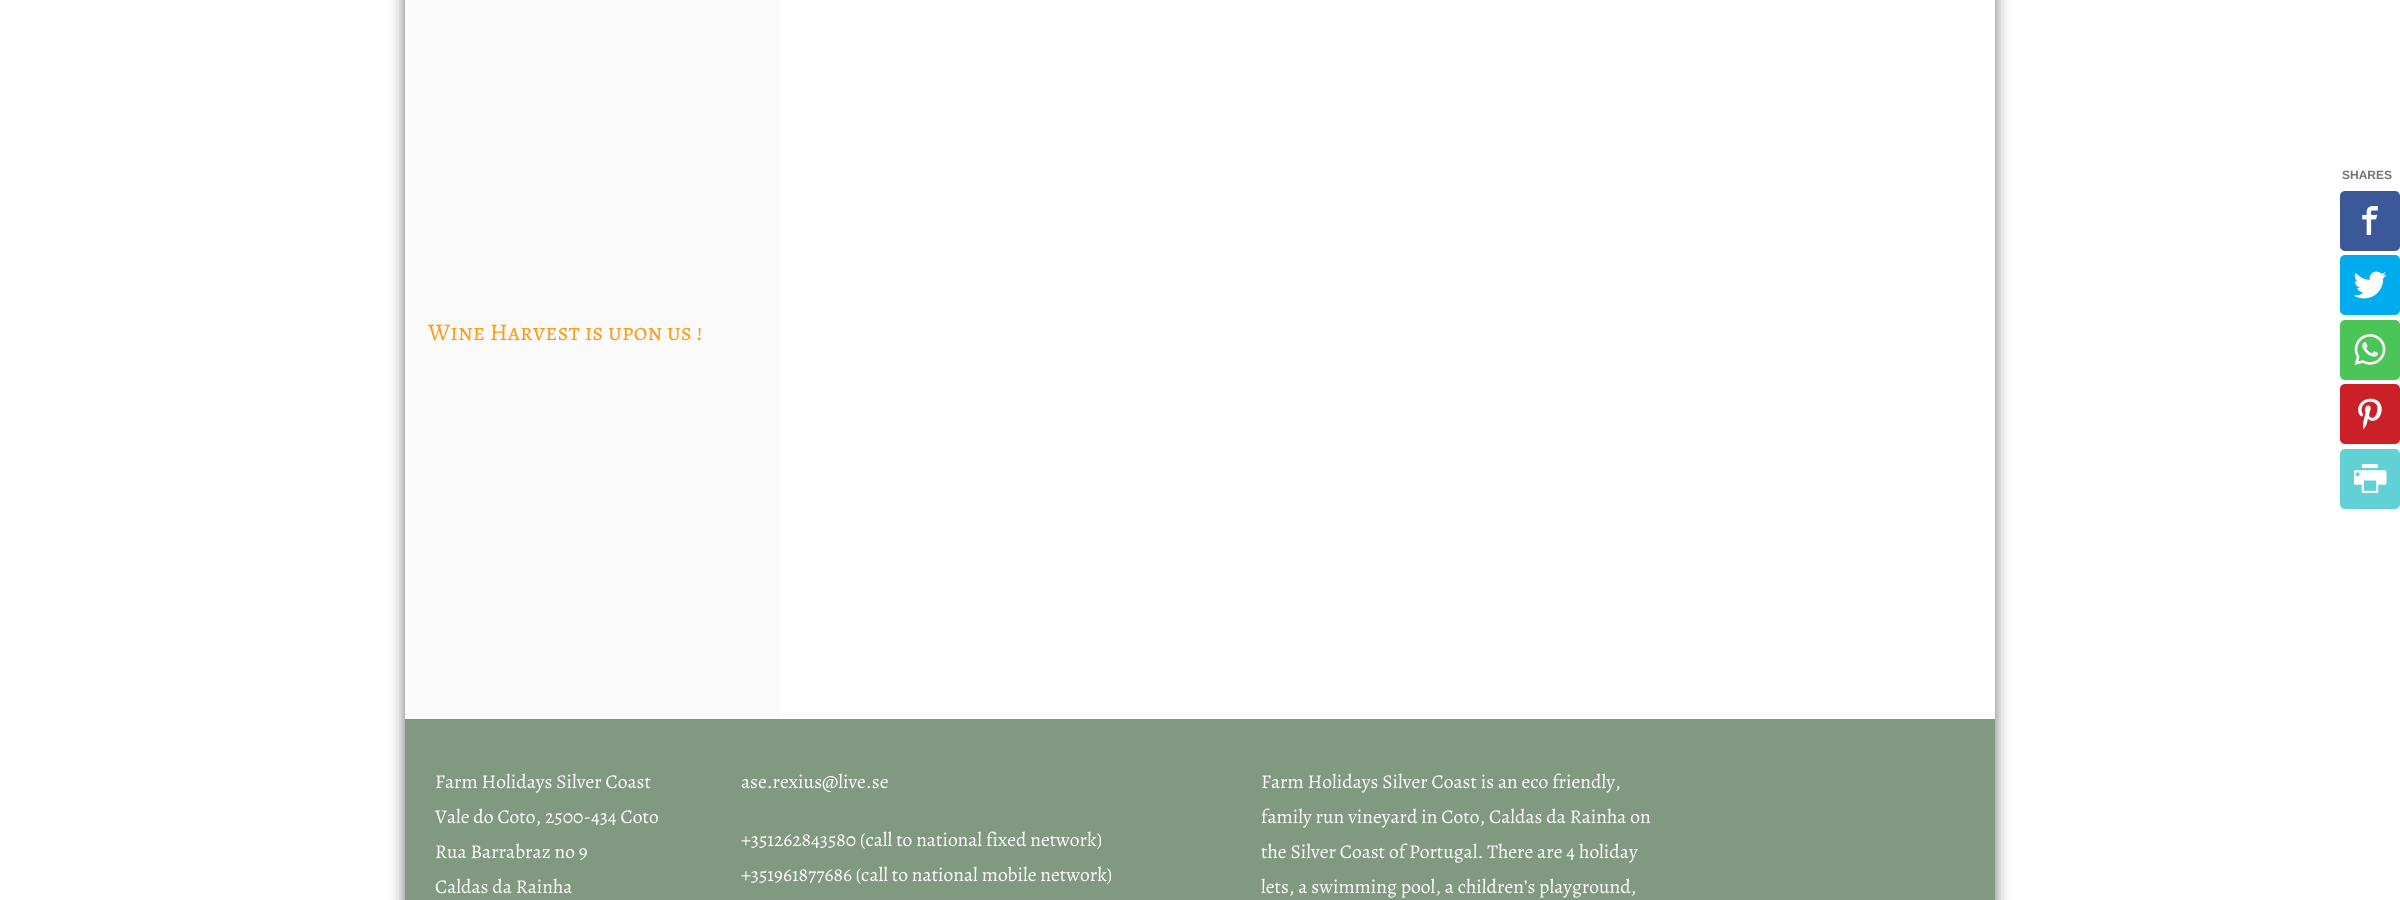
#include <cairo.h>
#include <math.h>
#include <stddef.h>

static cairo_t *ctx;

static void use_color(int r, int g, int b) {
    cairo_set_source_rgb(ctx, r / 255.0, g / 255.0, b / 255.0);
}

static void round_rect(double x, double y, double w, double h, double r) {
    cairo_new_sub_path(ctx);
    cairo_arc(ctx, x + w - r, y + h - r, r, 0, M_PI / 2);
    cairo_arc(ctx, x + r, y + h - r, r, M_PI / 2, M_PI);
    cairo_arc(ctx, x + r, y + r, r, M_PI, 1.5 * M_PI);
    cairo_arc(ctx, x + w - r, y + r, r, 1.5 * M_PI, 2 * M_PI);
    cairo_close_path(ctx);
}

static void shadow(double x, double y, double w, double h, double r, double blur, double alpha) {
    cairo_push_group_with_content(ctx, CAIRO_CONTENT_ALPHA);
    cairo_set_operator(ctx, CAIRO_OPERATOR_SOURCE);
    for (int i = 15; i >= -15 && fmin(w, h) + blur * i / 3 > 0; i -= 2) {
        double e = blur * i / 6;
        cairo_set_source_rgba(ctx, 0, 0, 0, alpha * erfc((i - 1) / 8.5) / 2);
        round_rect(x - e, y - e, w + 2 * e, h + 2 * e, fmax(0, fmin(r + e + blur * .6, fmin(w, h) / 2 + e)));
        cairo_fill(ctx);
    }
    cairo_pattern_t *soft = cairo_pop_group(ctx);
    cairo_mask(ctx, soft);
    cairo_pattern_destroy(soft);
}

static void picture(const char *path, double x, double y, double w, double h) {
    cairo_surface_t *image = cairo_image_surface_create_from_png(path);
    cairo_save(ctx);
    cairo_set_source_surface(ctx, image, x, y);
    cairo_rectangle(ctx, x, y, w, h);
    cairo_fill(ctx);
    cairo_restore(ctx);
    cairo_surface_destroy(image);
}

int main(void) {
    cairo_surface_t *surface = cairo_image_surface_create(CAIRO_FORMAT_RGB24, 2400, 900);
    ctx = cairo_create(surface);
    cairo_font_options_t *options = cairo_font_options_create();
    cairo_font_options_set_hint_metrics(options, CAIRO_HINT_METRICS_OFF);
    cairo_font_options_set_hint_style(options, CAIRO_HINT_STYLE_NONE);
    cairo_set_font_options(ctx, options);
    cairo_set_miter_limit(ctx, 4);
    use_color(255, 255, 255);
    cairo_paint(ctx);
    cairo_select_font_face(ctx, "Liberation Sans", CAIRO_FONT_SLANT_NORMAL, CAIRO_FONT_WEIGHT_BOLD);
    cairo_set_font_size(ctx, 12);
    use_color(117, 117, 117);
    cairo_move_to(ctx, 2342, 179);
    cairo_show_text(ctx, "SHARES");
    use_color(59, 89, 152);
    round_rect(2340, 191, 60, 60, 5);
    cairo_fill(ctx);
    picture("img1.png", 2362, 206, 16, 29);
    use_color(0, 172, 237);
    round_rect(2340, 255, 60, 60, 5);
    cairo_fill(ctx);
    picture("img2.png", 2354, 271, 33, 28);
    use_color(75, 197, 87);
    round_rect(2340, 320, 60, 60, 5);
    cairo_fill(ctx);
    picture("img3.png", 2354, 334, 32, 31);
    use_color(203, 32, 39);
    round_rect(2340, 384, 60, 60, 5);
    cairo_fill(ctx);
    picture("img4.png", 2358, 398, 24, 32);
    use_color(97, 209, 213);
    round_rect(2340, 449, 60, 60, 5);
    cairo_fill(ctx);
    picture("img5.png", 2354, 464, 33, 29);
    use_color(0, 0, 0);
    shadow(405, -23, 1590, 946, 0, 7.5, 0.6);
    use_color(250, 250, 250);
    cairo_rectangle(ctx, 405, 0, 375, 719);
    cairo_fill(ctx);
    cairo_select_font_face(ctx, "Alegreya SC", CAIRO_FONT_SLANT_NORMAL, CAIRO_FONT_WEIGHT_NORMAL);
    cairo_set_font_size(ctx, 24);
    use_color(255, 153, 18);
    cairo_move_to(ctx, 428, 340);
    cairo_show_text(ctx, "Wine Harvest is upon us !");
    use_color(255, 255, 255);
    cairo_rectangle(ctx, 780, 0, 1215, 719);
    cairo_fill(ctx);
    use_color(128, 153, 128);
    cairo_rectangle(ctx, 405, 719, 1590, 181);
    cairo_fill(ctx);
    cairo_select_font_face(ctx, "Alegreya", CAIRO_FONT_SLANT_NORMAL, CAIRO_FONT_WEIGHT_NORMAL);
    cairo_set_font_size(ctx, 19.5);
    use_color(255, 255, 255);
    cairo_move_to(ctx, 435, 788);
    cairo_show_text(ctx, "Farm Holidays Silver Coast");
    cairo_move_to(ctx, 435, 823);
    cairo_show_text(ctx, "Vale do Coto, 2500-434 Coto");
    cairo_move_to(ctx, 435, 858);
    cairo_show_text(ctx, "Rua Barrabraz no 9");
    cairo_move_to(ctx, 435, 893);
    cairo_show_text(ctx, "Caldas da Rainha");
    cairo_move_to(ctx, 741, 788);
    cairo_show_text(ctx, "ase.rexius@live.se");
    cairo_move_to(ctx, 741, 846);
    cairo_show_text(ctx, "+351262843580 (call to national fixed network)");
    cairo_move_to(ctx, 741, 881);
    cairo_show_text(ctx, "+351961877686 (call to national mobile network)");
    cairo_move_to(ctx, 1261, 788);
    cairo_show_text(ctx, "Farm Holidays Silver Coast is an eco friendly,");
    cairo_move_to(ctx, 1261, 823);
    cairo_show_text(ctx, "family run vineyard in Coto, Caldas da Rainha on");
    cairo_move_to(ctx, 1261, 858);
    cairo_show_text(ctx, "the Silver Coast of Portugal. There are 4 holiday");
    cairo_move_to(ctx, 1261, 893);
    cairo_show_text(ctx, "lets, a swimming pool, a children’s playground,");
    cairo_surface_write_to_png(surface, "result.png");
    cairo_font_options_destroy(options);
    cairo_destroy(ctx);
    cairo_surface_destroy(surface);
    return 0;
}
